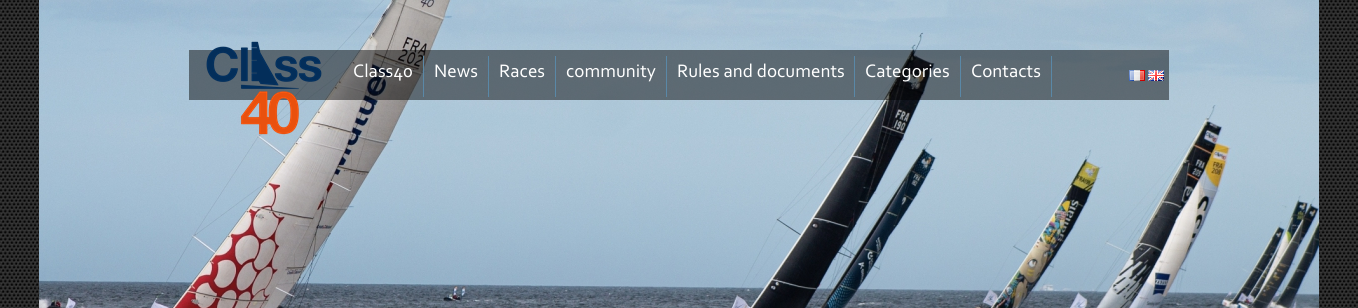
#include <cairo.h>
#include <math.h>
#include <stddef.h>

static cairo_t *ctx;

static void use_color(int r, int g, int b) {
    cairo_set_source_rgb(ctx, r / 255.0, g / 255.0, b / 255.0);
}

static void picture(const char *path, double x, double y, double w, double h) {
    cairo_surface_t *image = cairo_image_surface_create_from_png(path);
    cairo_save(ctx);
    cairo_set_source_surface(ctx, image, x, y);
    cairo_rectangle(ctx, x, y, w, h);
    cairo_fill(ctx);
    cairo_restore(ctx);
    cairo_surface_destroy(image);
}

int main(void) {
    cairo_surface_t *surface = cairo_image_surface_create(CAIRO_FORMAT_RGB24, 1358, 308);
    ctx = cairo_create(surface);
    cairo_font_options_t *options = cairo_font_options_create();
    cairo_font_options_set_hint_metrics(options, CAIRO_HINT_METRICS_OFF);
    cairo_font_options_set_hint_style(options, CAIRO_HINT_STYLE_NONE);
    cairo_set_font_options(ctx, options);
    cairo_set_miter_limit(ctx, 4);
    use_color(255, 255, 255);
    cairo_paint(ctx);
    picture("img1.png", 0, 0, 1358, 308);
    picture("img2.png", 39, 0, 1280, 308);
    cairo_set_source_rgba(ctx, 0, 0, 0, 0.47);
    cairo_rectangle(ctx, 189, 50, 980, 50);
    cairo_fill(ctx);
    picture("img3.png", 206, 41, 116, 94);
    use_color(90, 136, 167);
    cairo_rectangle(ctx, 423, 56, 1, 41);
    cairo_fill(ctx);
    cairo_select_font_face(ctx, "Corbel", CAIRO_FONT_SLANT_NORMAL, CAIRO_FONT_WEIGHT_NORMAL);
    cairo_set_font_size(ctx, 19);
    use_color(255, 255, 255);
    cairo_move_to(ctx, 353, 77);
    cairo_show_text(ctx, "Class40");
    use_color(90, 136, 167);
    cairo_rectangle(ctx, 488, 56, 1, 41);
    cairo_fill(ctx);
    use_color(255, 255, 255);
    cairo_move_to(ctx, 434, 77);
    cairo_show_text(ctx, "News");
    use_color(90, 136, 167);
    cairo_rectangle(ctx, 555, 56, 1, 41);
    cairo_fill(ctx);
    use_color(255, 255, 255);
    cairo_move_to(ctx, 499, 77);
    cairo_show_text(ctx, "Races");
    use_color(90, 136, 167);
    cairo_rectangle(ctx, 666, 56, 1, 41);
    cairo_fill(ctx);
    use_color(255, 255, 255);
    cairo_move_to(ctx, 566, 77);
    cairo_show_text(ctx, "community");
    use_color(90, 136, 167);
    cairo_rectangle(ctx, 854, 56, 1, 41);
    cairo_fill(ctx);
    use_color(255, 255, 255);
    cairo_move_to(ctx, 677, 77);
    cairo_show_text(ctx, "Rules and documents");
    use_color(90, 136, 167);
    cairo_rectangle(ctx, 960, 56, 1, 41);
    cairo_fill(ctx);
    use_color(255, 255, 255);
    cairo_move_to(ctx, 865, 77);
    cairo_show_text(ctx, "Categories");
    use_color(90, 136, 167);
    cairo_rectangle(ctx, 1051, 56, 1, 41);
    cairo_fill(ctx);
    use_color(255, 255, 255);
    cairo_move_to(ctx, 971, 77);
    cairo_show_text(ctx, "Contacts");
    picture("img4.png", 1129, 70, 16, 11);
    picture("img5.png", 1148, 70, 16, 11);
    cairo_surface_write_to_png(surface, "result.png");
    cairo_font_options_destroy(options);
    cairo_destroy(ctx);
    cairo_surface_destroy(surface);
    return 0;
}
